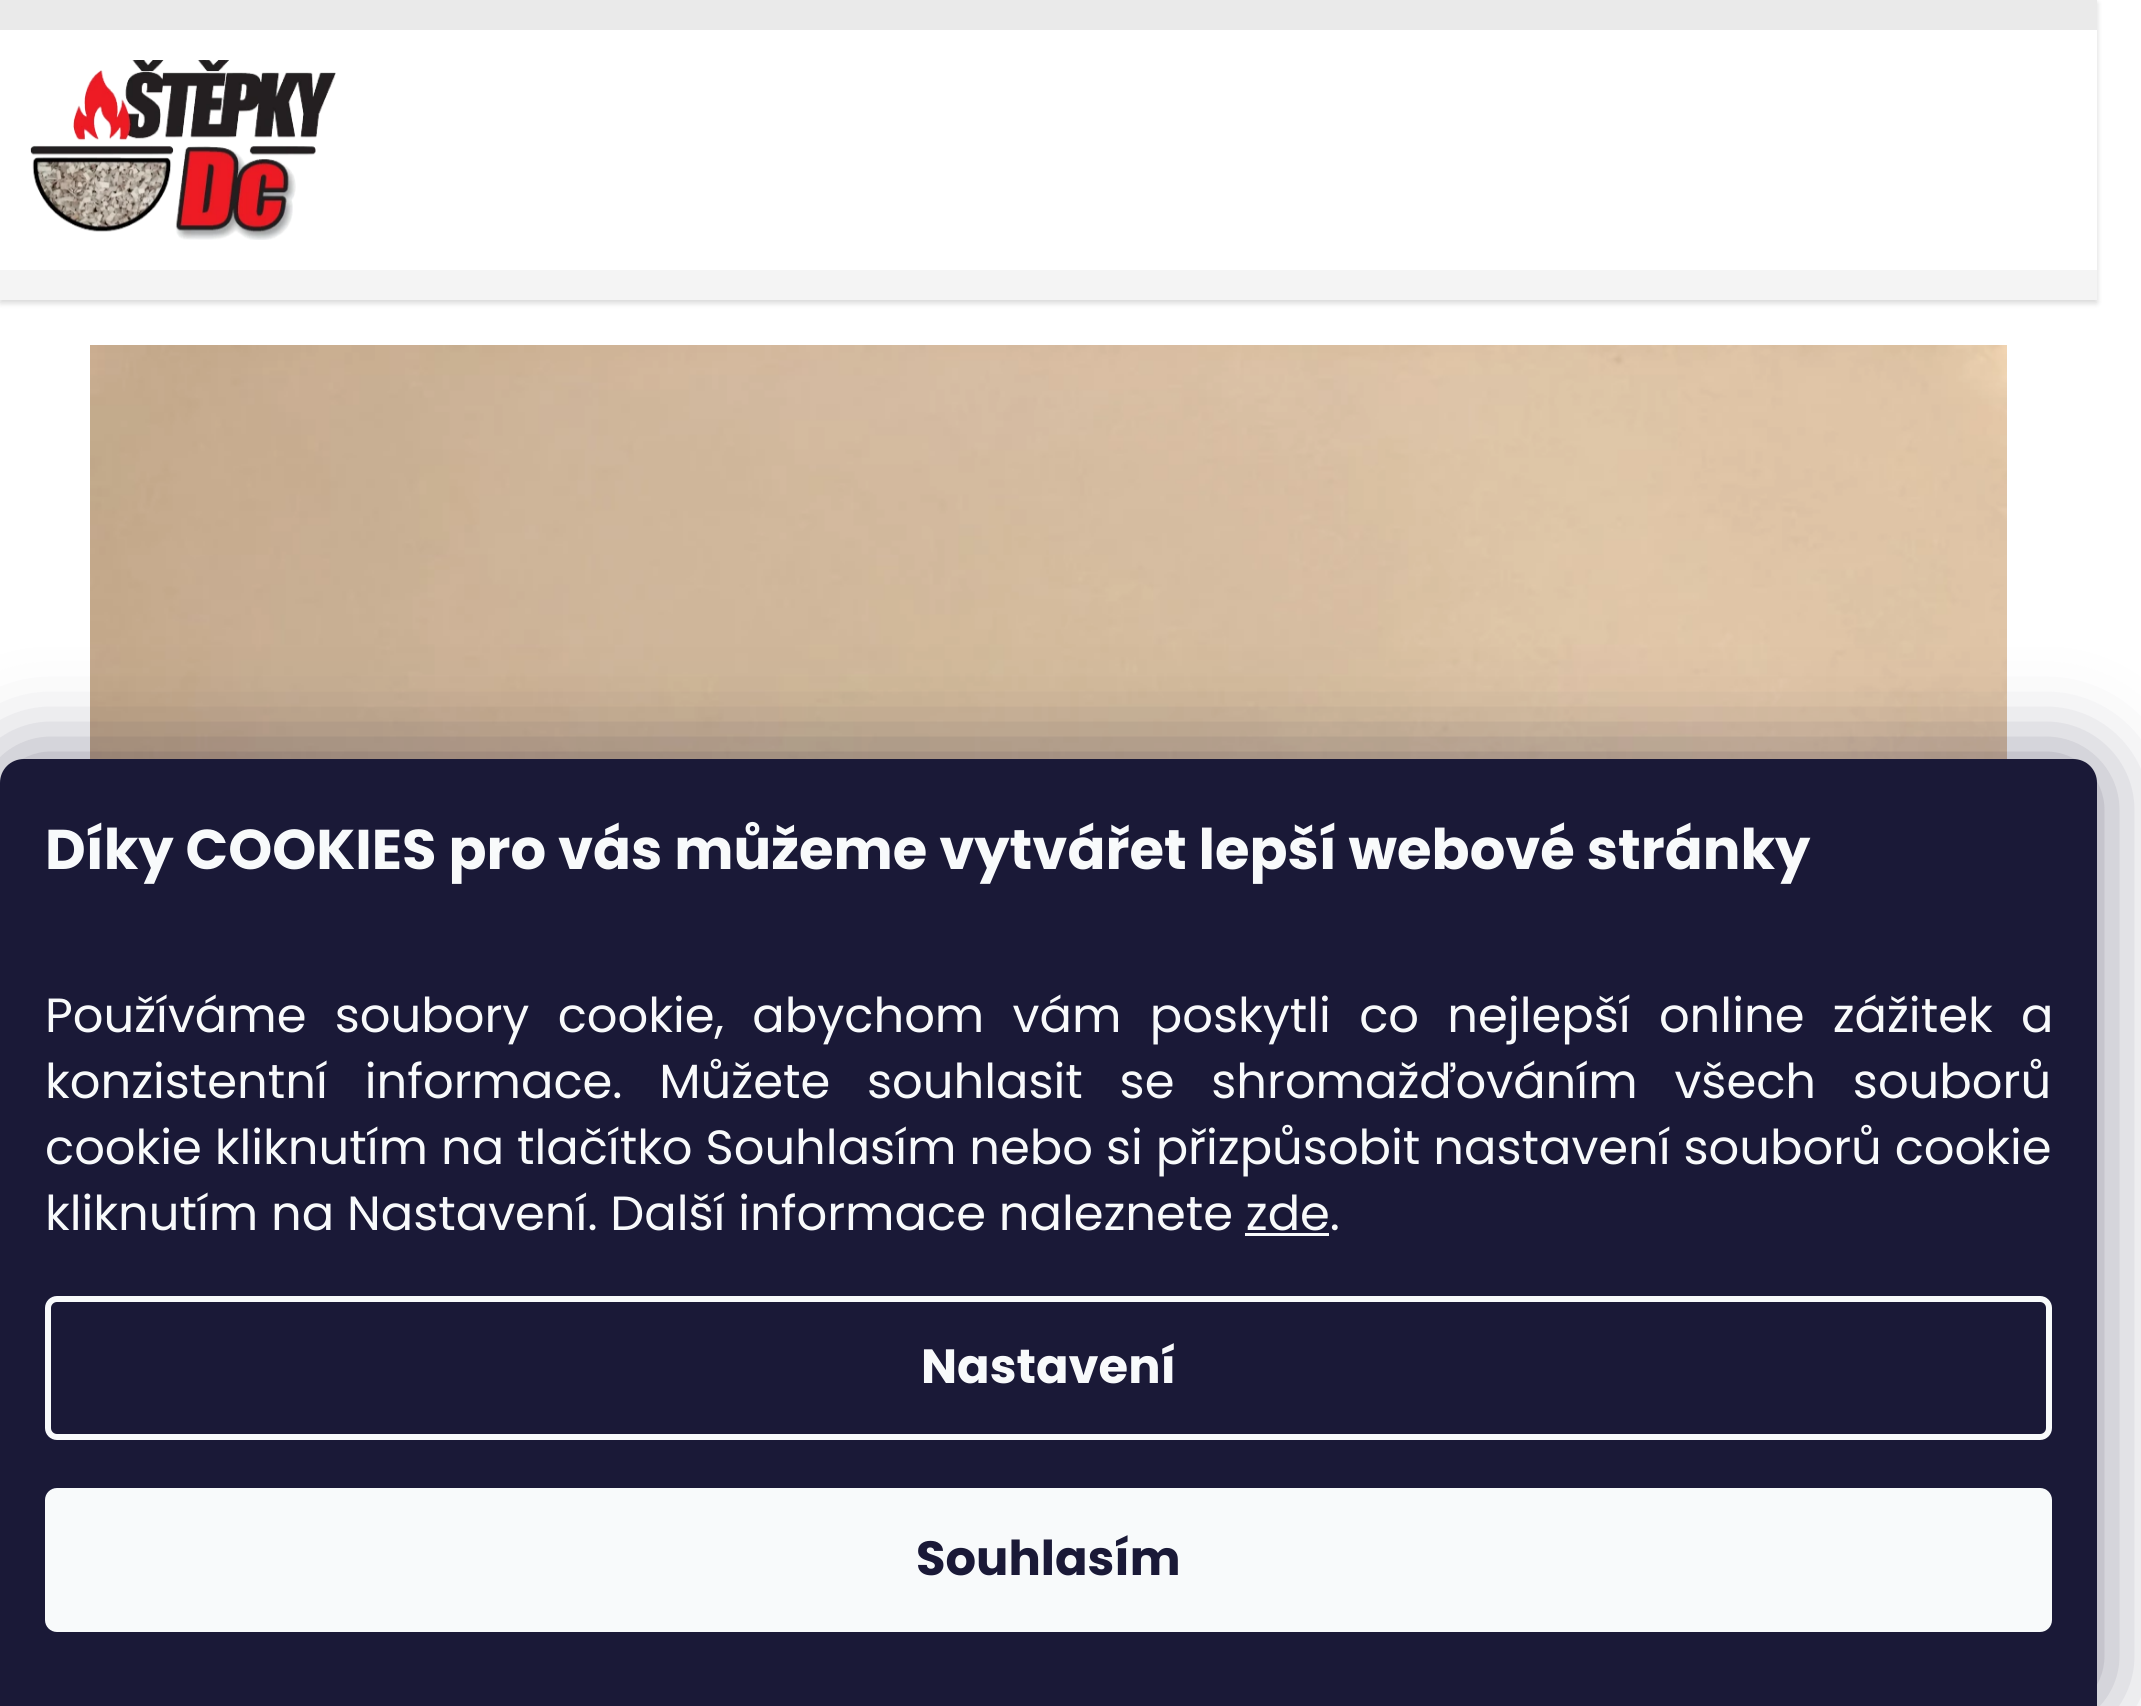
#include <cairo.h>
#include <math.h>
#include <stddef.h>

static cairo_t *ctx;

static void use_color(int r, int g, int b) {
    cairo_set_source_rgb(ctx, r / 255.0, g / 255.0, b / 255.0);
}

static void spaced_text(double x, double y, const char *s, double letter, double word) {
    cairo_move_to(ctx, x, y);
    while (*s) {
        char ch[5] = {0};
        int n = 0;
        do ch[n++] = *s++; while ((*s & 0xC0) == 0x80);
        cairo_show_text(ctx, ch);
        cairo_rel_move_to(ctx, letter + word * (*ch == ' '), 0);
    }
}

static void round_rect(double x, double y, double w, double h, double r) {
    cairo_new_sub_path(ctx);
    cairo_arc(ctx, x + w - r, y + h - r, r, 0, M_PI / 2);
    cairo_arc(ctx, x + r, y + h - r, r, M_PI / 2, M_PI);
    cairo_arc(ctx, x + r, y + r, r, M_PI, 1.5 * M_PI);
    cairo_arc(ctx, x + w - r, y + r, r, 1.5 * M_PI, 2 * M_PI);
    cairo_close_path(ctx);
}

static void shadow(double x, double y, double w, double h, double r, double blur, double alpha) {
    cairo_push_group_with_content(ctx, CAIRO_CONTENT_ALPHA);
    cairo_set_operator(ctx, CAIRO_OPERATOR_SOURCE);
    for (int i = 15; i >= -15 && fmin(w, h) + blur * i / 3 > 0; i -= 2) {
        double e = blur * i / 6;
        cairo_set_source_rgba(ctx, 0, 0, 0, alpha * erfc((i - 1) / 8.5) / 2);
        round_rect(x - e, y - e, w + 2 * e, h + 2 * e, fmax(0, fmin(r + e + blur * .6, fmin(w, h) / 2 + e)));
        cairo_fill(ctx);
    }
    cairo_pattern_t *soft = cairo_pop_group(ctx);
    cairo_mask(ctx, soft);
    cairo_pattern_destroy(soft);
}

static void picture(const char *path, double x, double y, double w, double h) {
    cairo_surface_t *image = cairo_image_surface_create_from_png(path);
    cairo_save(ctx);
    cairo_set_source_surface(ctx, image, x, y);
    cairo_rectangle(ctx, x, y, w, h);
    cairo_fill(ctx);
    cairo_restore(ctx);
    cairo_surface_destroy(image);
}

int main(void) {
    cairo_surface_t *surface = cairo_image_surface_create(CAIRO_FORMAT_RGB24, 2141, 1706);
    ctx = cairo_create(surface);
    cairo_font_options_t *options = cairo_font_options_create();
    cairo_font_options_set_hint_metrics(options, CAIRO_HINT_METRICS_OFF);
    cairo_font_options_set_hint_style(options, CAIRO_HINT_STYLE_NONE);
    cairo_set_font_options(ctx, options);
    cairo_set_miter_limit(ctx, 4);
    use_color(255, 255, 255);
    cairo_paint(ctx);
    cairo_save(ctx);
    cairo_set_fill_rule(ctx, CAIRO_FILL_RULE_EVEN_ODD);
    cairo_new_path(ctx);
    cairo_move_to(ctx, 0, 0);
    cairo_line_to(ctx, 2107, 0);
    cairo_line_to(ctx, 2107, 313);
    cairo_line_to(ctx, 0, 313);
    cairo_close_path(ctx);
    cairo_move_to(ctx, 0, 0);
    cairo_line_to(ctx, 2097, 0);
    cairo_line_to(ctx, 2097, 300);
    cairo_line_to(ctx, 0, 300);
    cairo_close_path(ctx);
    cairo_clip(ctx);
    use_color(0, 0, 0);
    shadow(0, 3, 2097, 300, 0, 3, 0.16);
    cairo_restore(ctx);
    use_color(234, 234, 234);
    cairo_rectangle(ctx, 0, 0, 2097, 30);
    cairo_fill(ctx);
    use_color(244, 244, 244);
    cairo_rectangle(ctx, 0, 270, 2097, 30);
    cairo_fill(ctx);
    picture("img1.png", 30, 60, 306, 180);
    picture("img2.png", 90, 345, 1917, 414);
    use_color(27, 25, 57);
    shadow(0, 759, 2097, 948, 24, 45, 0.5);
    use_color(26, 25, 55);
    cairo_new_path(ctx);
    cairo_move_to(ctx, 24, 759);
    cairo_line_to(ctx, 2073, 759);
    cairo_curve_to(ctx, 2086.5, 759, 2097, 769.5, 2097, 783);
    cairo_line_to(ctx, 2097, 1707);
    cairo_line_to(ctx, 0, 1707);
    cairo_line_to(ctx, 0, 783);
    cairo_curve_to(ctx, 0, 769.5, 10.5, 759, 24, 759);
    cairo_close_path(ctx);
    cairo_fill(ctx);
    cairo_select_font_face(ctx, "Poppins", CAIRO_FONT_SLANT_NORMAL, CAIRO_FONT_WEIGHT_BOLD);
    cairo_set_font_size(ctx, 56);
    use_color(248, 250, 251);
    cairo_move_to(ctx, 45, 869);
    cairo_show_text(ctx, "Díky COOKIES pro vás můžeme vytvářet lepší webové stránky");
    cairo_select_font_face(ctx, "Poppins", CAIRO_FONT_SLANT_NORMAL, CAIRO_FONT_WEIGHT_NORMAL);
    cairo_set_font_size(ctx, 48);
    spaced_text(45, 1032, "Používáme soubory cookie, abychom vám poskytli co nejlepší online zážitek a", 0, 15.5);
    spaced_text(45, 1098, "konzistentní informace. Můžete souhlasit se shromažďováním všech souborů", 0, 24);
    spaced_text(45, 1164, "cookie kliknutím na tlačítko Souhlasím nebo si přizpůsobit nastavení souborů cookie", 0, 0.1);
    cairo_move_to(ctx, 45, 1230);
    cairo_show_text(ctx, "kliknutím na Nastavení. Další informace naleznete zde.");
    cairo_rectangle(ctx, 1245, 1233, 84, 3);
    cairo_fill(ctx);
    round_rect(48, 1299, 2001, 138, 9);
    cairo_set_line_width(ctx, 6);
    cairo_stroke(ctx);
    cairo_select_font_face(ctx, "Poppins", CAIRO_FONT_SLANT_NORMAL, CAIRO_FONT_WEIGHT_BOLD);
    cairo_move_to(ctx, 921, 1383);
    cairo_show_text(ctx, "Nastavení");
    round_rect(45, 1488, 2007, 144, 12);
    cairo_fill(ctx);
    use_color(26, 25, 55);
    cairo_move_to(ctx, 916, 1575);
    cairo_show_text(ctx, "Souhlasím");
    cairo_surface_write_to_png(surface, "result.png");
    cairo_font_options_destroy(options);
    cairo_destroy(ctx);
    cairo_surface_destroy(surface);
    return 0;
}
